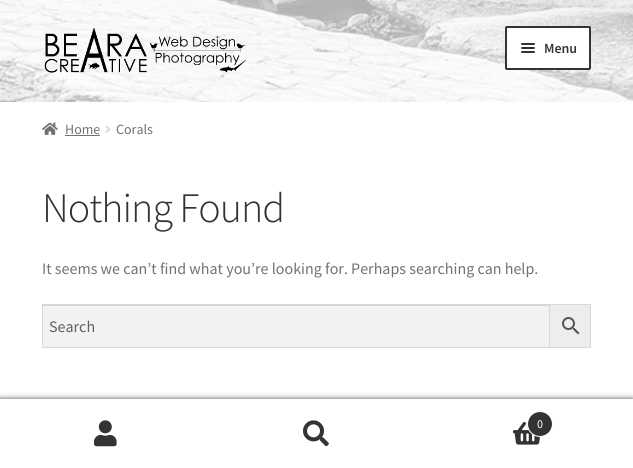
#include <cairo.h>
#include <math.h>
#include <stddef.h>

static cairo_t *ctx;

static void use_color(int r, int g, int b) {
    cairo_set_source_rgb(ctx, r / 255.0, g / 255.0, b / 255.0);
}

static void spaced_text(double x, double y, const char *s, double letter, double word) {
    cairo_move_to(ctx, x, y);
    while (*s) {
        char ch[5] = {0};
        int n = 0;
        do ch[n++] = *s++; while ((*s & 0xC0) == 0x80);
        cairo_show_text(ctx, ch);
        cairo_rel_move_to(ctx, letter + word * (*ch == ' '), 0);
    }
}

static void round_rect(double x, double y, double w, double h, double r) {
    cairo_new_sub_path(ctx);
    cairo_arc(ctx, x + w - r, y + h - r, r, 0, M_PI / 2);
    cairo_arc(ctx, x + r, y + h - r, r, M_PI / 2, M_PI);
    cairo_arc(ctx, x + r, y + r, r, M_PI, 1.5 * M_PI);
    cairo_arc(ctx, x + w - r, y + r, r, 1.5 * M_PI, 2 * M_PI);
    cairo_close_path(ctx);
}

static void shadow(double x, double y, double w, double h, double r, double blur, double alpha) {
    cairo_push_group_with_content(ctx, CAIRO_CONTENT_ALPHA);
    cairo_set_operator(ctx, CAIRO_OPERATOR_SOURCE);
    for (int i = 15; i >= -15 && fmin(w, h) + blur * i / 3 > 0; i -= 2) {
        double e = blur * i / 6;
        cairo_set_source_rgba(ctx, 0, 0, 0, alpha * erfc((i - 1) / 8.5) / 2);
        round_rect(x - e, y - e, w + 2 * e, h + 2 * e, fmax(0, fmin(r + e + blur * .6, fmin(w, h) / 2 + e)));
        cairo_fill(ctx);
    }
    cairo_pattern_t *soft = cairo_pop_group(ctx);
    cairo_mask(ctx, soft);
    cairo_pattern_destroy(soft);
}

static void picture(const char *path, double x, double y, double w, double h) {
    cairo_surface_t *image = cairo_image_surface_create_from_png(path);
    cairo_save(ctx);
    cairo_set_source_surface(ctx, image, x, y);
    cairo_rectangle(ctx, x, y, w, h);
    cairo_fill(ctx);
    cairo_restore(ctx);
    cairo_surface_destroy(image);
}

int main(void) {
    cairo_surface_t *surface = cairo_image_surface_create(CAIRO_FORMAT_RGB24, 633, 468);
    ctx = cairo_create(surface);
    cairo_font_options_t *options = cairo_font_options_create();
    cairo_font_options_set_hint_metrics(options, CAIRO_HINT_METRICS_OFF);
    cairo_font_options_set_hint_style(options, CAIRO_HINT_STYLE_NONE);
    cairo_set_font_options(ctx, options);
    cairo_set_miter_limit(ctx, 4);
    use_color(255, 255, 255);
    cairo_paint(ctx);
    picture("img1.png", 0, 0, 633, 102);
    picture("img2.png", 44, 28, 202, 45);
    use_color(255, 255, 255);
    round_rect(506, 27, 84, 42, 1);
    cairo_fill_preserve(ctx);
    use_color(51, 51, 51);
    cairo_stroke(ctx);
    round_rect(521, 43, 14, 2, 1);
    cairo_fill(ctx);
    round_rect(521, 47, 14, 2, 1);
    cairo_fill(ctx);
    cairo_select_font_face(ctx, "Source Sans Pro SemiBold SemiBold", CAIRO_FONT_SLANT_NORMAL, CAIRO_FONT_WEIGHT_NORMAL);
    cairo_set_font_size(ctx, 14);
    cairo_move_to(ctx, 544, 53);
    cairo_show_text(ctx, "Menu");
    round_rect(521, 51, 14, 2, 1);
    cairo_fill(ctx);
    picture("img3.png", 42, 122, 16, 13);
    cairo_select_font_face(ctx, "Source Sans Pro", CAIRO_FONT_SLANT_NORMAL, CAIRO_FONT_WEIGHT_NORMAL);
    use_color(114, 114, 114);
    cairo_move_to(ctx, 65, 134);
    cairo_show_text(ctx, "Home");
    cairo_rectangle(ctx, 65, 135, 35, 1);
    cairo_fill(ctx);
    picture("img4.png", 105, 125, 6, 8);
    cairo_move_to(ctx, 116, 134);
    cairo_show_text(ctx, "Corals");
    cairo_select_font_face(ctx, "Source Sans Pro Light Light", CAIRO_FONT_SLANT_NORMAL, CAIRO_FONT_WEIGHT_NORMAL);
    cairo_set_font_size(ctx, 42);
    use_color(51, 51, 51);
    spaced_text(42, 222, "Nothing Found", -1, 0);
    cairo_select_font_face(ctx, "Source Sans Pro", CAIRO_FONT_SLANT_NORMAL, CAIRO_FONT_WEIGHT_NORMAL);
    cairo_set_font_size(ctx, 16);
    use_color(114, 114, 114);
    cairo_move_to(ctx, 42, 274);
    cairo_show_text(ctx, "It seems we can’t find what you’re looking for. Perhaps searching can help.");
    use_color(242, 242, 242);
    cairo_rectangle(ctx, 43, 306, 506, 41);
    cairo_fill(ctx);
    use_color(212, 212, 212);
    cairo_rectangle(ctx, 43, 305, 506, 1);
    cairo_fill(ctx);
    use_color(237, 237, 237);
    cairo_rectangle(ctx, 549.5, 304.5, 41, 43);
    cairo_fill_preserve(ctx);
    use_color(216, 216, 216);
    cairo_set_line_width(ctx, 1);
    cairo_stroke(ctx);
    cairo_rectangle(ctx, 42.5, 304.5, 507, 43);
    cairo_stroke(ctx);
    use_color(97, 97, 97);
    cairo_move_to(ctx, 49, 332);
    cairo_show_text(ctx, "Search");
    picture("img5.png", 562, 317, 18, 18);
    use_color(0, 0, 0);
    shadow(0, 399, 633, 69, 0, 3, 0.7);
    use_color(255, 255, 255);
    cairo_rectangle(ctx, 0, 399, 633, 1);
    cairo_fill(ctx);
    cairo_rectangle(ctx, 0, 400, 633, 68);
    cairo_fill(ctx);
    picture("img6.png", 94, 420, 23, 27);
    picture("img7.png", 303, 420, 26, 27);
    picture("img8.png", 513, 422, 28, 23);
    use_color(51, 51, 51);
    cairo_arc(ctx, 540, 424, 12.5, 0, 2 * M_PI);
    cairo_fill_preserve(ctx);
    use_color(255, 255, 255);
    cairo_stroke(ctx);
    cairo_set_font_size(ctx, 12);
    cairo_move_to(ctx, 537, 428);
    cairo_show_text(ctx, "0");
    cairo_surface_write_to_png(surface, "result.png");
    cairo_font_options_destroy(options);
    cairo_destroy(ctx);
    cairo_surface_destroy(surface);
    return 0;
}
